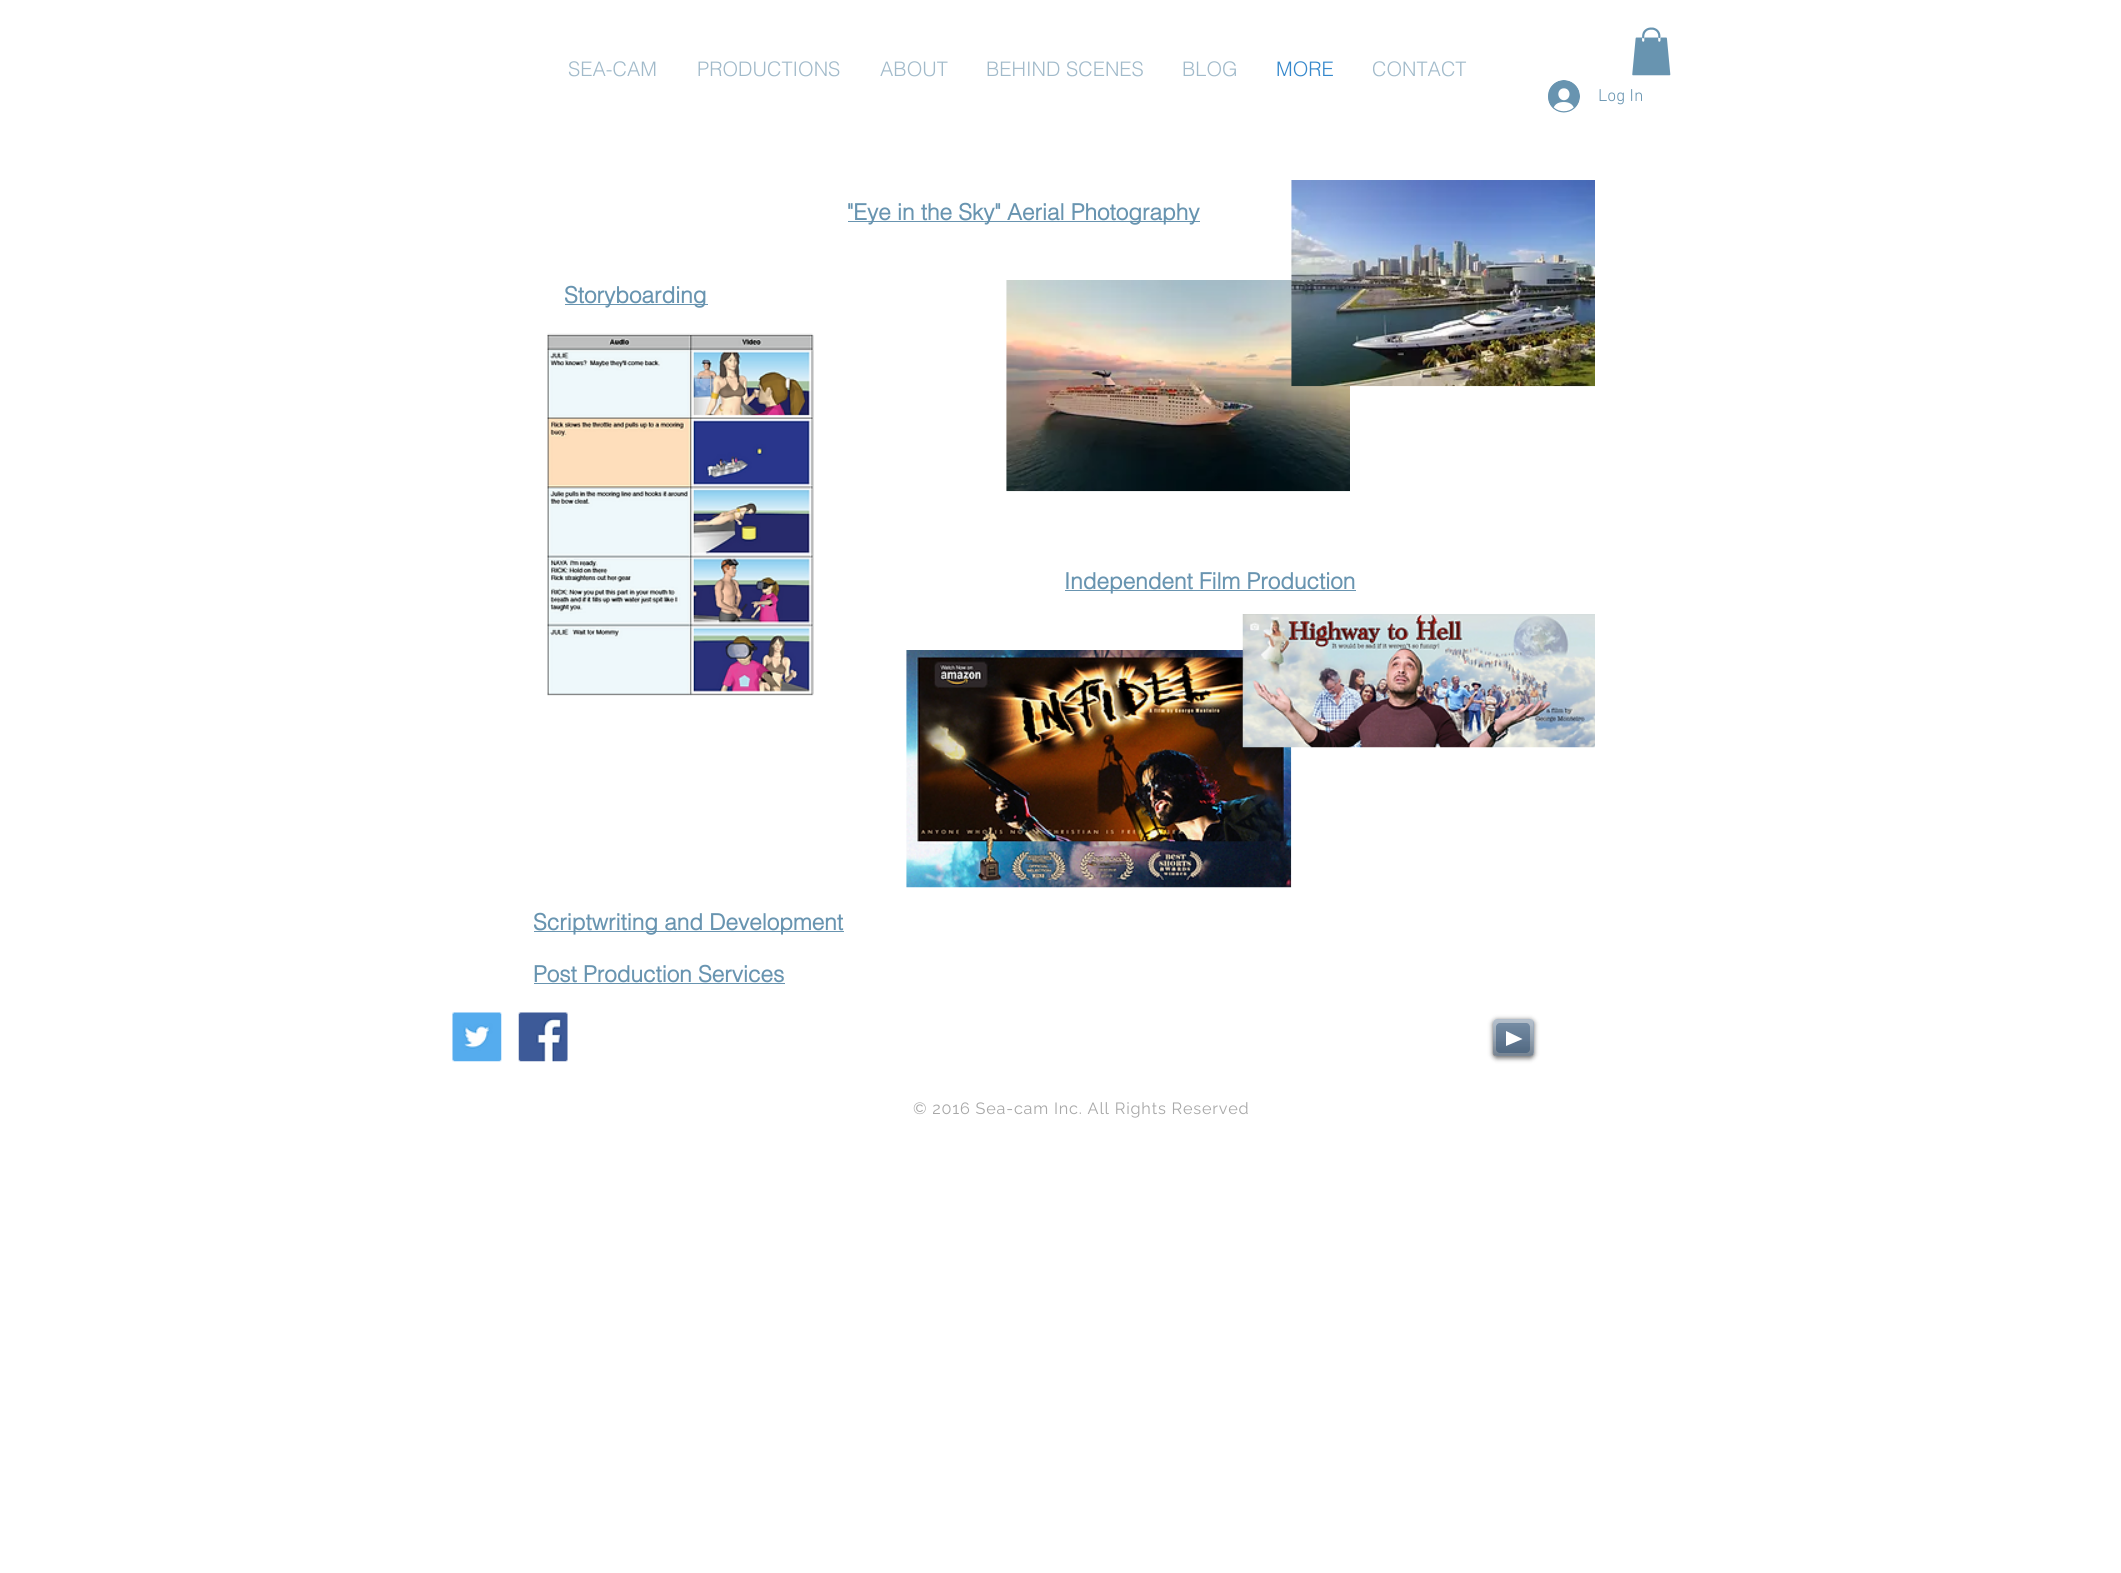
#include <cairo.h>
#include <math.h>
#include <stddef.h>

static cairo_t *ctx;

static void use_color(int r, int g, int b) {
    cairo_set_source_rgb(ctx, r / 255.0, g / 255.0, b / 255.0);
}

static void spaced_text(double x, double y, const char *s, double letter, double word) {
    cairo_move_to(ctx, x, y);
    while (*s) {
        char ch[5] = {0};
        int n = 0;
        do ch[n++] = *s++; while ((*s & 0xC0) == 0x80);
        cairo_show_text(ctx, ch);
        cairo_rel_move_to(ctx, letter + word * (*ch == ' '), 0);
    }
}

static void round_rect(double x, double y, double w, double h, double r) {
    cairo_new_sub_path(ctx);
    cairo_arc(ctx, x + w - r, y + h - r, r, 0, M_PI / 2);
    cairo_arc(ctx, x + r, y + h - r, r, M_PI / 2, M_PI);
    cairo_arc(ctx, x + r, y + r, r, M_PI, 1.5 * M_PI);
    cairo_arc(ctx, x + w - r, y + r, r, 1.5 * M_PI, 2 * M_PI);
    cairo_close_path(ctx);
}

static void shadow(double x, double y, double w, double h, double r, double blur, double alpha) {
    cairo_push_group_with_content(ctx, CAIRO_CONTENT_ALPHA);
    cairo_set_operator(ctx, CAIRO_OPERATOR_SOURCE);
    for (int i = 15; i >= -15 && fmin(w, h) + blur * i / 3 > 0; i -= 2) {
        double e = blur * i / 6;
        cairo_set_source_rgba(ctx, 0, 0, 0, alpha * erfc((i - 1) / 8.5) / 2);
        round_rect(x - e, y - e, w + 2 * e, h + 2 * e, fmax(0, fmin(r + e + blur * .6, fmin(w, h) / 2 + e)));
        cairo_fill(ctx);
    }
    cairo_pattern_t *soft = cairo_pop_group(ctx);
    cairo_mask(ctx, soft);
    cairo_pattern_destroy(soft);
}

static void picture(const char *path, double x, double y, double w, double h) {
    cairo_surface_t *image = cairo_image_surface_create_from_png(path);
    cairo_save(ctx);
    cairo_set_source_surface(ctx, image, x, y);
    cairo_rectangle(ctx, x, y, w, h);
    cairo_fill(ctx);
    cairo_restore(ctx);
    cairo_surface_destroy(image);
}

int main(void) {
    cairo_surface_t *surface = cairo_image_surface_create(CAIRO_FORMAT_RGB24, 2121, 1573);
    ctx = cairo_create(surface);
    cairo_font_options_t *options = cairo_font_options_create();
    cairo_font_options_set_hint_metrics(options, CAIRO_HINT_METRICS_OFF);
    cairo_font_options_set_hint_style(options, CAIRO_HINT_STYLE_NONE);
    cairo_set_font_options(ctx, options);
    cairo_set_miter_limit(ctx, 4);
    use_color(255, 255, 255);
    cairo_paint(ctx);
    cairo_select_font_face(ctx, "helvetica Light", CAIRO_FONT_SLANT_NORMAL, CAIRO_FONT_WEIGHT_NORMAL);
    cairo_set_font_size(ctx, 20);
    use_color(161, 186, 202);
    cairo_move_to(ctx, 568, 76);
    cairo_show_text(ctx, "SEA-CAM");
    cairo_move_to(ctx, 697, 76);
    cairo_show_text(ctx, "PRODUCTIONS");
    cairo_move_to(ctx, 880, 76);
    cairo_show_text(ctx, "ABOUT");
    cairo_move_to(ctx, 986, 76);
    cairo_show_text(ctx, "BEHIND SCENES");
    cairo_move_to(ctx, 1182, 76);
    cairo_show_text(ctx, "BLOG");
    use_color(53, 136, 204);
    cairo_move_to(ctx, 1276, 76);
    cairo_show_text(ctx, "MORE");
    use_color(161, 186, 202);
    cairo_move_to(ctx, 1372, 76);
    cairo_show_text(ctx, "CONTACT");
    picture("img1.png", 1632, 27, 39, 49);
    picture("img2.png", 1548, 80, 32, 33);
    cairo_select_font_face(ctx, "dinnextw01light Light", CAIRO_FONT_SLANT_NORMAL, CAIRO_FONT_WEIGHT_NORMAL);
    cairo_set_font_size(ctx, 17.5);
    use_color(104, 148, 176);
    cairo_move_to(ctx, 1598, 101);
    cairo_show_text(ctx, "Log In");
    cairo_rectangle(ctx, 848, 221, 352, 1);
    cairo_fill(ctx);
    cairo_select_font_face(ctx, "helvetica", CAIRO_FONT_SLANT_NORMAL, CAIRO_FONT_WEIGHT_BOLD);
    cairo_set_font_size(ctx, 22.5);
    cairo_move_to(ctx, 847, 220);
    cairo_show_text(ctx, "\"Eye in the Sky\" Aerial Photography");
    picture("img4.png", 1006, 280, 344, 212);
    picture("img3.png", 1291, 180, 304, 207);
    cairo_rectangle(ctx, 565, 304, 143, 1);
    cairo_fill(ctx);
    cairo_move_to(ctx, 564, 303);
    cairo_show_text(ctx, "Storyboarding");
    picture("img5.png", 547, 333, 267, 363);
    cairo_rectangle(ctx, 1065, 590, 291, 1);
    cairo_fill(ctx);
    cairo_move_to(ctx, 1064, 589);
    cairo_show_text(ctx, "Independent Film Production");
    picture("img6.png", 906, 650, 386, 238);
    picture("img7.png", 1242, 614, 353, 134);
    cairo_rectangle(ctx, 534, 931, 310, 1);
    cairo_fill(ctx);
    cairo_move_to(ctx, 533, 930);
    cairo_show_text(ctx, "Scriptwriting and Development");
    cairo_move_to(ctx, 533, 982);
    cairo_show_text(ctx, "Post Production Services");
    cairo_rectangle(ctx, 534, 983, 251, 1);
    cairo_fill(ctx);
    picture("img8.png", 452, 1012, 50, 50);
    picture("img9.png", 518, 1012, 50, 50);
    cairo_save(ctx);
    cairo_set_fill_rule(ctx, CAIRO_FILL_RULE_EVEN_ODD);
    cairo_new_path(ctx);
    cairo_move_to(ctx, 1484, 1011);
    cairo_line_to(ctx, 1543, 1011);
    cairo_line_to(ctx, 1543, 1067);
    cairo_line_to(ctx, 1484, 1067);
    cairo_close_path(ctx);
    cairo_move_to(ctx, 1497, 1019);
    cairo_line_to(ctx, 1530, 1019);
    cairo_curve_to(ctx, 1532, 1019, 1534, 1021, 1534, 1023);
    cairo_line_to(ctx, 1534, 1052);
    cairo_curve_to(ctx, 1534, 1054, 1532, 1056, 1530, 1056);
    cairo_line_to(ctx, 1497, 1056);
    cairo_curve_to(ctx, 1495, 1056, 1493, 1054, 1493, 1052);
    cairo_line_to(ctx, 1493, 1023);
    cairo_curve_to(ctx, 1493, 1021, 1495, 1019, 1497, 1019);
    cairo_close_path(ctx);
    cairo_clip(ctx);
    use_color(0, 0, 0);
    shadow(1493, 1020, 41, 38, 4, 2.5, 0.6);
    cairo_restore(ctx);
    cairo_set_source_rgba(ctx, 0, 0.18, 0.365, 0.45);
    round_rect(1493, 1019, 41, 37, 4);
    cairo_fill(ctx);
    picture("img10.png", 1493, 1019, 41, 37);
    picture("img11.png", 1492, 1019, 42, 37);
    cairo_set_source_rgba(ctx, 0, 0.18, 0.365, 0.34);
    round_rect(1496, 1023, 34, 30, 4);
    cairo_fill(ctx);
    use_color(255, 255, 255);
    cairo_new_path(ctx);
    cairo_move_to(ctx, 1506, 1046);
    cairo_line_to(ctx, 1506, 1031);
    cairo_line_to(ctx, 1522.5, 1039);
    cairo_close_path(ctx);
    cairo_fill(ctx);
    cairo_select_font_face(ctx, "Raleway", CAIRO_FONT_SLANT_NORMAL, CAIRO_FONT_WEIGHT_NORMAL);
    cairo_set_font_size(ctx, 16.25);
    use_color(167, 167, 167);
    spaced_text(913, 1114, "© 2016 Sea-cam Inc. All Rights Reserved", 0.8, 0);
    cairo_surface_write_to_png(surface, "result.png");
    cairo_font_options_destroy(options);
    cairo_destroy(ctx);
    cairo_surface_destroy(surface);
    return 0;
}
